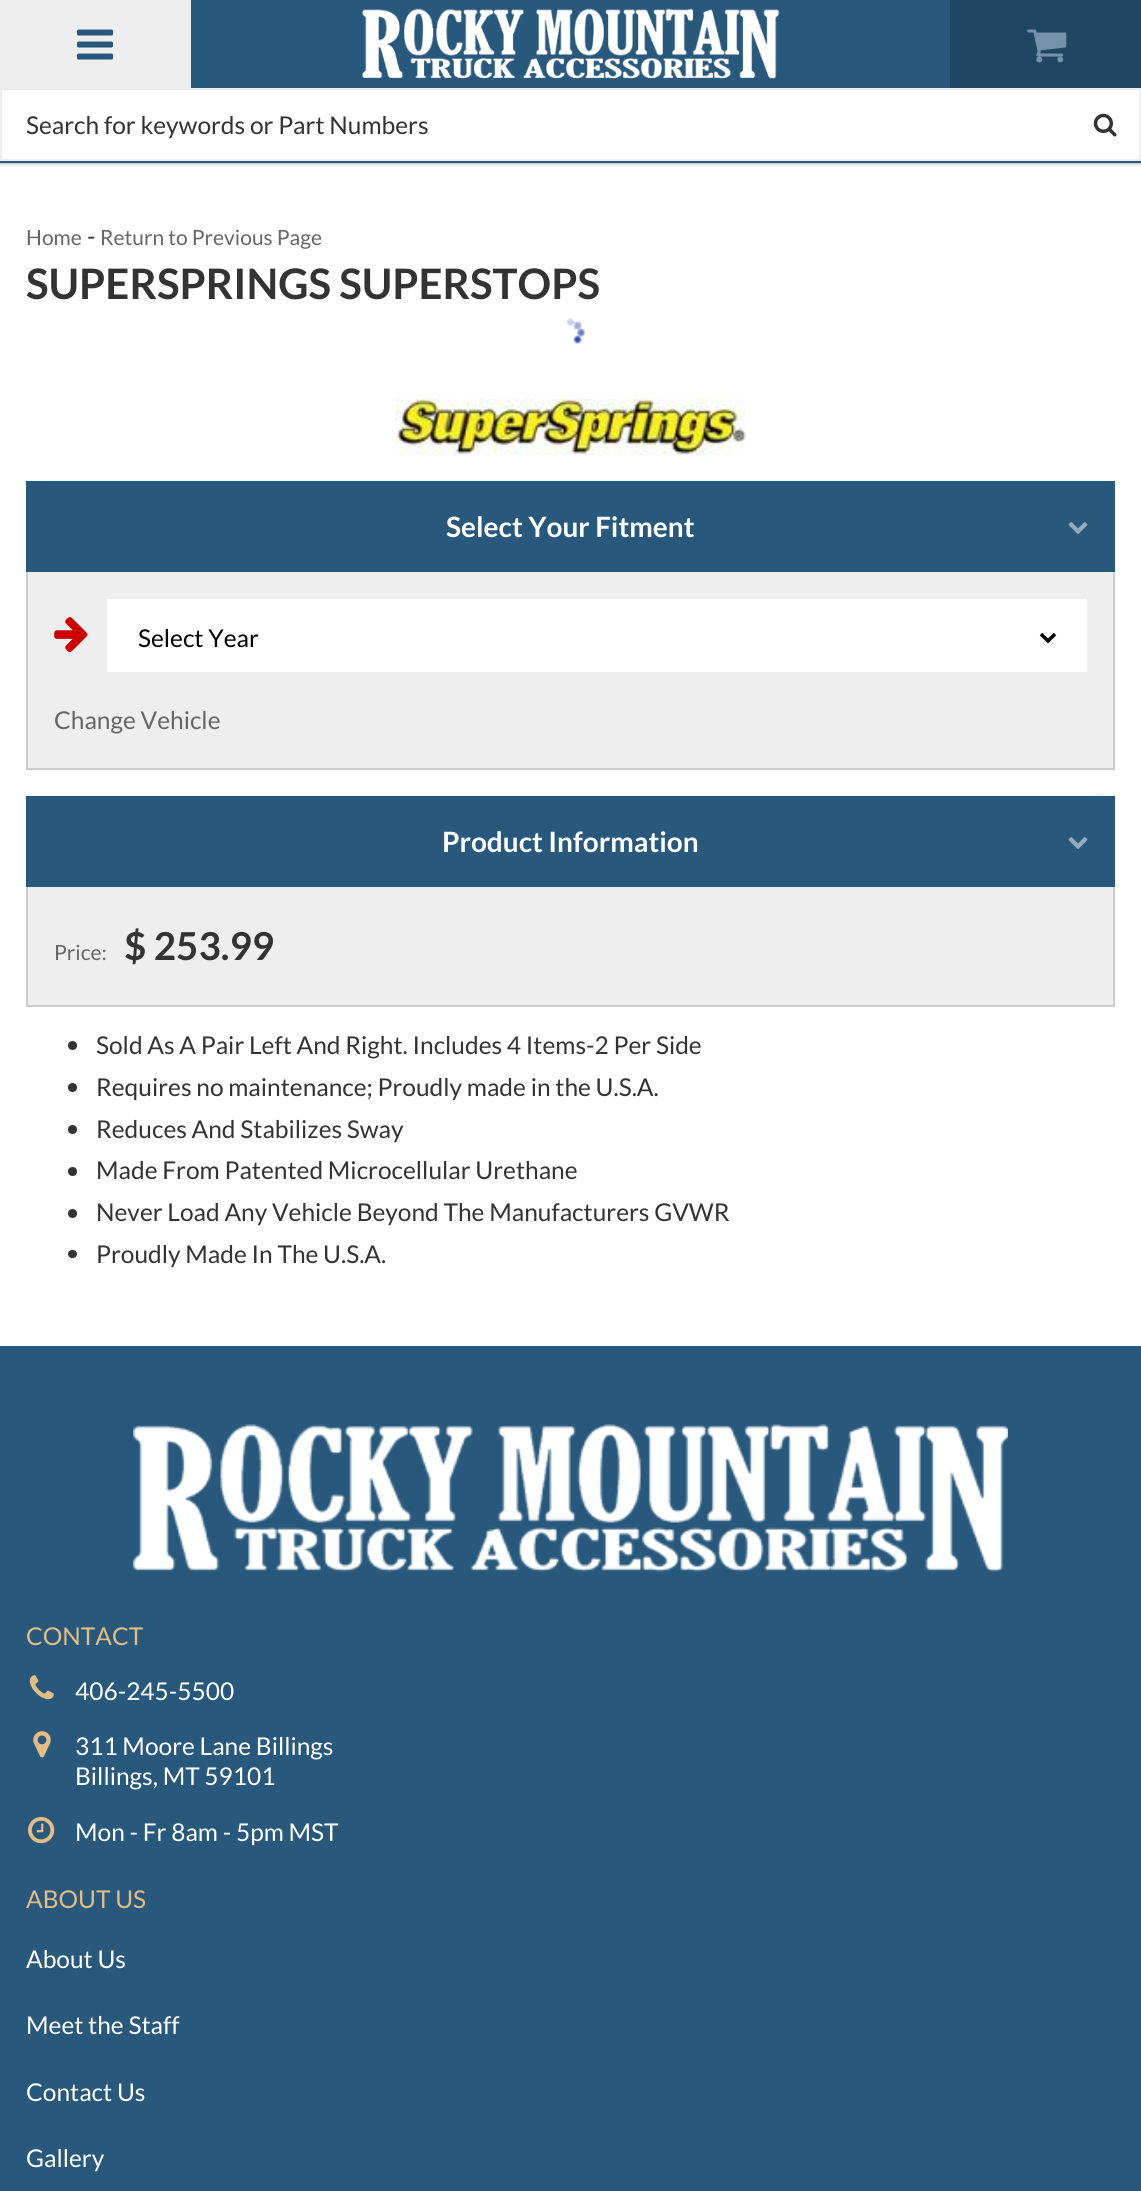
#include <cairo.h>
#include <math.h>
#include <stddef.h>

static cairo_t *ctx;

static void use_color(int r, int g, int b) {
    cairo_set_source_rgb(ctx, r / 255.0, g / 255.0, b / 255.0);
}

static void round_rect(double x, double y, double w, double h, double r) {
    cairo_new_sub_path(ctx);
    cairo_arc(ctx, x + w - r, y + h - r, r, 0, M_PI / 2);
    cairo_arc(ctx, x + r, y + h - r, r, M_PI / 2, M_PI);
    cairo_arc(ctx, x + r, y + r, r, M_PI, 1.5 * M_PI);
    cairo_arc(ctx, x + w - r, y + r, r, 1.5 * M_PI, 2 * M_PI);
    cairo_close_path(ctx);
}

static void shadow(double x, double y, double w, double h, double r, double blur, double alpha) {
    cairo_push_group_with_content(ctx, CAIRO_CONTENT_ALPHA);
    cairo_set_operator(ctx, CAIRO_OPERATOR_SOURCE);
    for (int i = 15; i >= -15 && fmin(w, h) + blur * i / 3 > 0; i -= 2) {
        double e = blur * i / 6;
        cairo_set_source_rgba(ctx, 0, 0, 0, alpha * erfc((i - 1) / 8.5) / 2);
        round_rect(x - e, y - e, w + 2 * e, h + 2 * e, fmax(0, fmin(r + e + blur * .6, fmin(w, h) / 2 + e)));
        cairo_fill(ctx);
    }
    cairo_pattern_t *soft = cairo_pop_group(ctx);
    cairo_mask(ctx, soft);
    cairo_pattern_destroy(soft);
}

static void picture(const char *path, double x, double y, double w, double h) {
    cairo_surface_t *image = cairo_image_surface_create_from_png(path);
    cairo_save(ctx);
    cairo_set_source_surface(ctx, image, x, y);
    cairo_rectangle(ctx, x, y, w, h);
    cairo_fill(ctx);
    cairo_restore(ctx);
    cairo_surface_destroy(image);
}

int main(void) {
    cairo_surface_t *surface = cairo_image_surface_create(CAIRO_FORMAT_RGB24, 1141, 2191);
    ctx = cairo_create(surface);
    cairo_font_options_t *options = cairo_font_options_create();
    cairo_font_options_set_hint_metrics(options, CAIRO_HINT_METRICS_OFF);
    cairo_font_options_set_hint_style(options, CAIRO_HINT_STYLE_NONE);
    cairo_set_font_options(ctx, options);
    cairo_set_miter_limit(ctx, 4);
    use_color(255, 255, 255);
    cairo_paint(ctx);
    use_color(0, 0, 0);
    shadow(0, 0, 1141, 163, 0, 2, 0.5);
    use_color(40, 88, 123);
    cairo_rectangle(ctx, 0, 0, 1141, 163);
    cairo_fill(ctx);
    use_color(238, 238, 238);
    cairo_rectangle(ctx, 0, 0, 191, 88);
    cairo_fill(ctx);
    picture("img1.png", 77, 29, 36, 31);
    picture("img2.png", 362, 8, 417, 71);
    use_color(32, 70, 98);
    cairo_rectangle(ctx, 950, 0, 191, 88);
    cairo_fill(ctx);
    picture("img3.png", 1027, 29, 40, 34);
    use_color(255, 255, 255);
    cairo_rectangle(ctx, 1, 89, 1139, 71);
    cairo_fill_preserve(ctx);
    use_color(238, 238, 238);
    cairo_stroke(ctx);
    cairo_select_font_face(ctx, "Lato", CAIRO_FONT_SLANT_NORMAL, CAIRO_FONT_WEIGHT_NORMAL);
    cairo_set_font_size(ctx, 24.5);
    use_color(51, 51, 51);
    cairo_move_to(ctx, 26, 134);
    cairo_show_text(ctx, "Search for keywords or Part Numbers");
    picture("img4.png", 1093, 113, 24, 24);
    cairo_set_font_size(ctx, 21);
    use_color(102, 102, 102);
    cairo_move_to(ctx, 26, 245);
    cairo_show_text(ctx, "Home");
    cairo_set_font_size(ctx, 24.5);
    use_color(51, 51, 51);
    cairo_move_to(ctx, 87, 245);
    cairo_show_text(ctx, "-");
    cairo_set_font_size(ctx, 21);
    use_color(102, 102, 102);
    cairo_move_to(ctx, 100, 245);
    cairo_show_text(ctx, "Return to Previous Page");
    cairo_select_font_face(ctx, "Lato", CAIRO_FONT_SLANT_NORMAL, CAIRO_FONT_WEIGHT_BOLD);
    cairo_set_font_size(ctx, 42);
    use_color(51, 51, 51);
    cairo_move_to(ctx, 26, 299);
    cairo_show_text(ctx, "SUPERSPRINGS SUPERSTOPS");
    picture("img5.png", 566, 318, 19, 26);
    picture("img6.png", 395, 399, 351, 56);
    use_color(40, 88, 123);
    cairo_rectangle(ctx, 26, 481, 1089, 91);
    cairo_fill(ctx);
    cairo_set_font_size(ctx, 28);
    use_color(255, 255, 255);
    cairo_move_to(ctx, 446, 537);
    cairo_show_text(ctx, "Select Your Fitment");
    picture("img7.png", 1068, 522, 20, 12);
    use_color(238, 238, 238);
    cairo_rectangle(ctx, 28, 572, 1085, 196);
    cairo_fill(ctx);
    use_color(204, 204, 204);
    cairo_rectangle(ctx, 1113, 572, 2, 198);
    cairo_fill(ctx);
    cairo_rectangle(ctx, 26, 768, 1089, 2);
    cairo_fill(ctx);
    cairo_rectangle(ctx, 26, 572, 2, 198);
    cairo_fill(ctx);
    use_color(255, 255, 255);
    cairo_rectangle(ctx, 107, 599, 980, 73);
    cairo_fill(ctx);
    picture("img8.png", 54, 617, 34, 35);
    cairo_new_path(ctx);
    cairo_move_to(ctx, 1041, 634);
    cairo_line_to(ctx, 1048, 641);
    cairo_line_to(ctx, 1055, 634);
    use_color(0, 0, 0);
    cairo_set_line_width(ctx, 3.5);
    cairo_stroke(ctx);
    cairo_select_font_face(ctx, "Lato", CAIRO_FONT_SLANT_NORMAL, CAIRO_FONT_WEIGHT_NORMAL);
    cairo_set_font_size(ctx, 24.5);
    cairo_move_to(ctx, 138, 647);
    cairo_show_text(ctx, "Select Year");
    use_color(102, 102, 102);
    cairo_move_to(ctx, 54, 729);
    cairo_show_text(ctx, "Change Vehicle");
    use_color(40, 88, 123);
    cairo_rectangle(ctx, 26, 796, 1089, 91);
    cairo_fill(ctx);
    cairo_select_font_face(ctx, "Lato", CAIRO_FONT_SLANT_NORMAL, CAIRO_FONT_WEIGHT_BOLD);
    cairo_set_font_size(ctx, 28);
    use_color(255, 255, 255);
    cairo_move_to(ctx, 442, 852);
    cairo_show_text(ctx, "Product Information");
    picture("img7.png", 1068, 837, 20, 12);
    use_color(238, 238, 238);
    cairo_rectangle(ctx, 28, 887, 1085, 118);
    cairo_fill(ctx);
    use_color(204, 204, 204);
    cairo_rectangle(ctx, 1113, 887, 2, 119);
    cairo_fill(ctx);
    cairo_rectangle(ctx, 26, 1005, 1089, 2);
    cairo_fill(ctx);
    cairo_rectangle(ctx, 26, 887, 2, 119);
    cairo_fill(ctx);
    cairo_select_font_face(ctx, "Lato", CAIRO_FONT_SLANT_NORMAL, CAIRO_FONT_WEIGHT_NORMAL);
    cairo_set_font_size(ctx, 21);
    use_color(102, 102, 102);
    cairo_move_to(ctx, 54, 960);
    cairo_show_text(ctx, "Price:");
    cairo_select_font_face(ctx, "Lato", CAIRO_FONT_SLANT_NORMAL, CAIRO_FONT_WEIGHT_BOLD);
    cairo_set_font_size(ctx, 38.5);
    use_color(51, 51, 51);
    cairo_move_to(ctx, 124, 960);
    cairo_show_text(ctx, "$ 253.99");
    cairo_new_path(ctx);
    cairo_arc(ctx, 72.5, 1045.5, 4.5, 0, 2 * M_PI);
    cairo_fill(ctx);
    cairo_select_font_face(ctx, "Lato", CAIRO_FONT_SLANT_NORMAL, CAIRO_FONT_WEIGHT_NORMAL);
    cairo_set_font_size(ctx, 24.5);
    cairo_move_to(ctx, 96, 1054);
    cairo_show_text(ctx, "Sold As A Pair Left And Right. Includes 4 Items-2 Per Side");
    cairo_new_path(ctx);
    cairo_arc(ctx, 72.5, 1087.5, 4.5, 0, 2 * M_PI);
    cairo_fill(ctx);
    cairo_move_to(ctx, 96, 1096);
    cairo_show_text(ctx, "Requires no maintenance; Proudly made in the U.S.A.");
    cairo_new_path(ctx);
    cairo_arc(ctx, 72.5, 1129.5, 4.5, 0, 2 * M_PI);
    cairo_fill(ctx);
    cairo_move_to(ctx, 96, 1138);
    cairo_show_text(ctx, "Reduces And Stabilizes Sway");
    cairo_new_path(ctx);
    cairo_arc(ctx, 72.5, 1171.5, 4.5, 0, 2 * M_PI);
    cairo_fill(ctx);
    cairo_move_to(ctx, 96, 1179);
    cairo_show_text(ctx, "Made From Patented Microcellular Urethane");
    cairo_new_path(ctx);
    cairo_arc(ctx, 72.5, 1213.5, 4.5, 0, 2 * M_PI);
    cairo_fill(ctx);
    cairo_move_to(ctx, 96, 1221);
    cairo_show_text(ctx, "Never Load Any Vehicle Beyond The Manufacturers GVWR");
    round_rect(68, 1250, 9, 8, 4);
    cairo_fill(ctx);
    cairo_move_to(ctx, 96, 1263);
    cairo_show_text(ctx, "Proudly Made In The U.S.A.");
    use_color(40, 88, 123);
    cairo_rectangle(ctx, 0, 1346, 1141, 845);
    cairo_fill(ctx);
    picture("img9.png", 133, 1424, 875, 148);
    use_color(228, 189, 132);
    cairo_move_to(ctx, 26, 1645);
    cairo_show_text(ctx, "CONTACT");
    picture("img10.png", 29, 1675, 25, 25);
    use_color(255, 255, 255);
    cairo_move_to(ctx, 75, 1700);
    cairo_show_text(ctx, "406-245-5500");
    picture("img11.png", 33, 1731, 18, 27);
    cairo_move_to(ctx, 75, 1755);
    cairo_show_text(ctx, "311 Moore Lane Billings");
    cairo_move_to(ctx, 75, 1785);
    cairo_show_text(ctx, "Billings, MT 59101");
    picture("img12.png", 28, 1816, 27, 28);
    cairo_move_to(ctx, 75, 1841);
    cairo_show_text(ctx, "Mon - Fr 8am - 5pm MST");
    use_color(228, 189, 132);
    cairo_move_to(ctx, 26, 1908);
    cairo_show_text(ctx, "ABOUT US");
    use_color(255, 255, 255);
    cairo_move_to(ctx, 26, 1968);
    cairo_show_text(ctx, "About Us");
    cairo_move_to(ctx, 26, 2034);
    cairo_show_text(ctx, "Meet the Staff");
    cairo_move_to(ctx, 26, 2101);
    cairo_show_text(ctx, "Contact Us");
    cairo_move_to(ctx, 26, 2167);
    cairo_show_text(ctx, "Gallery");
    cairo_surface_write_to_png(surface, "result.png");
    cairo_font_options_destroy(options);
    cairo_destroy(ctx);
    cairo_surface_destroy(surface);
    return 0;
}
